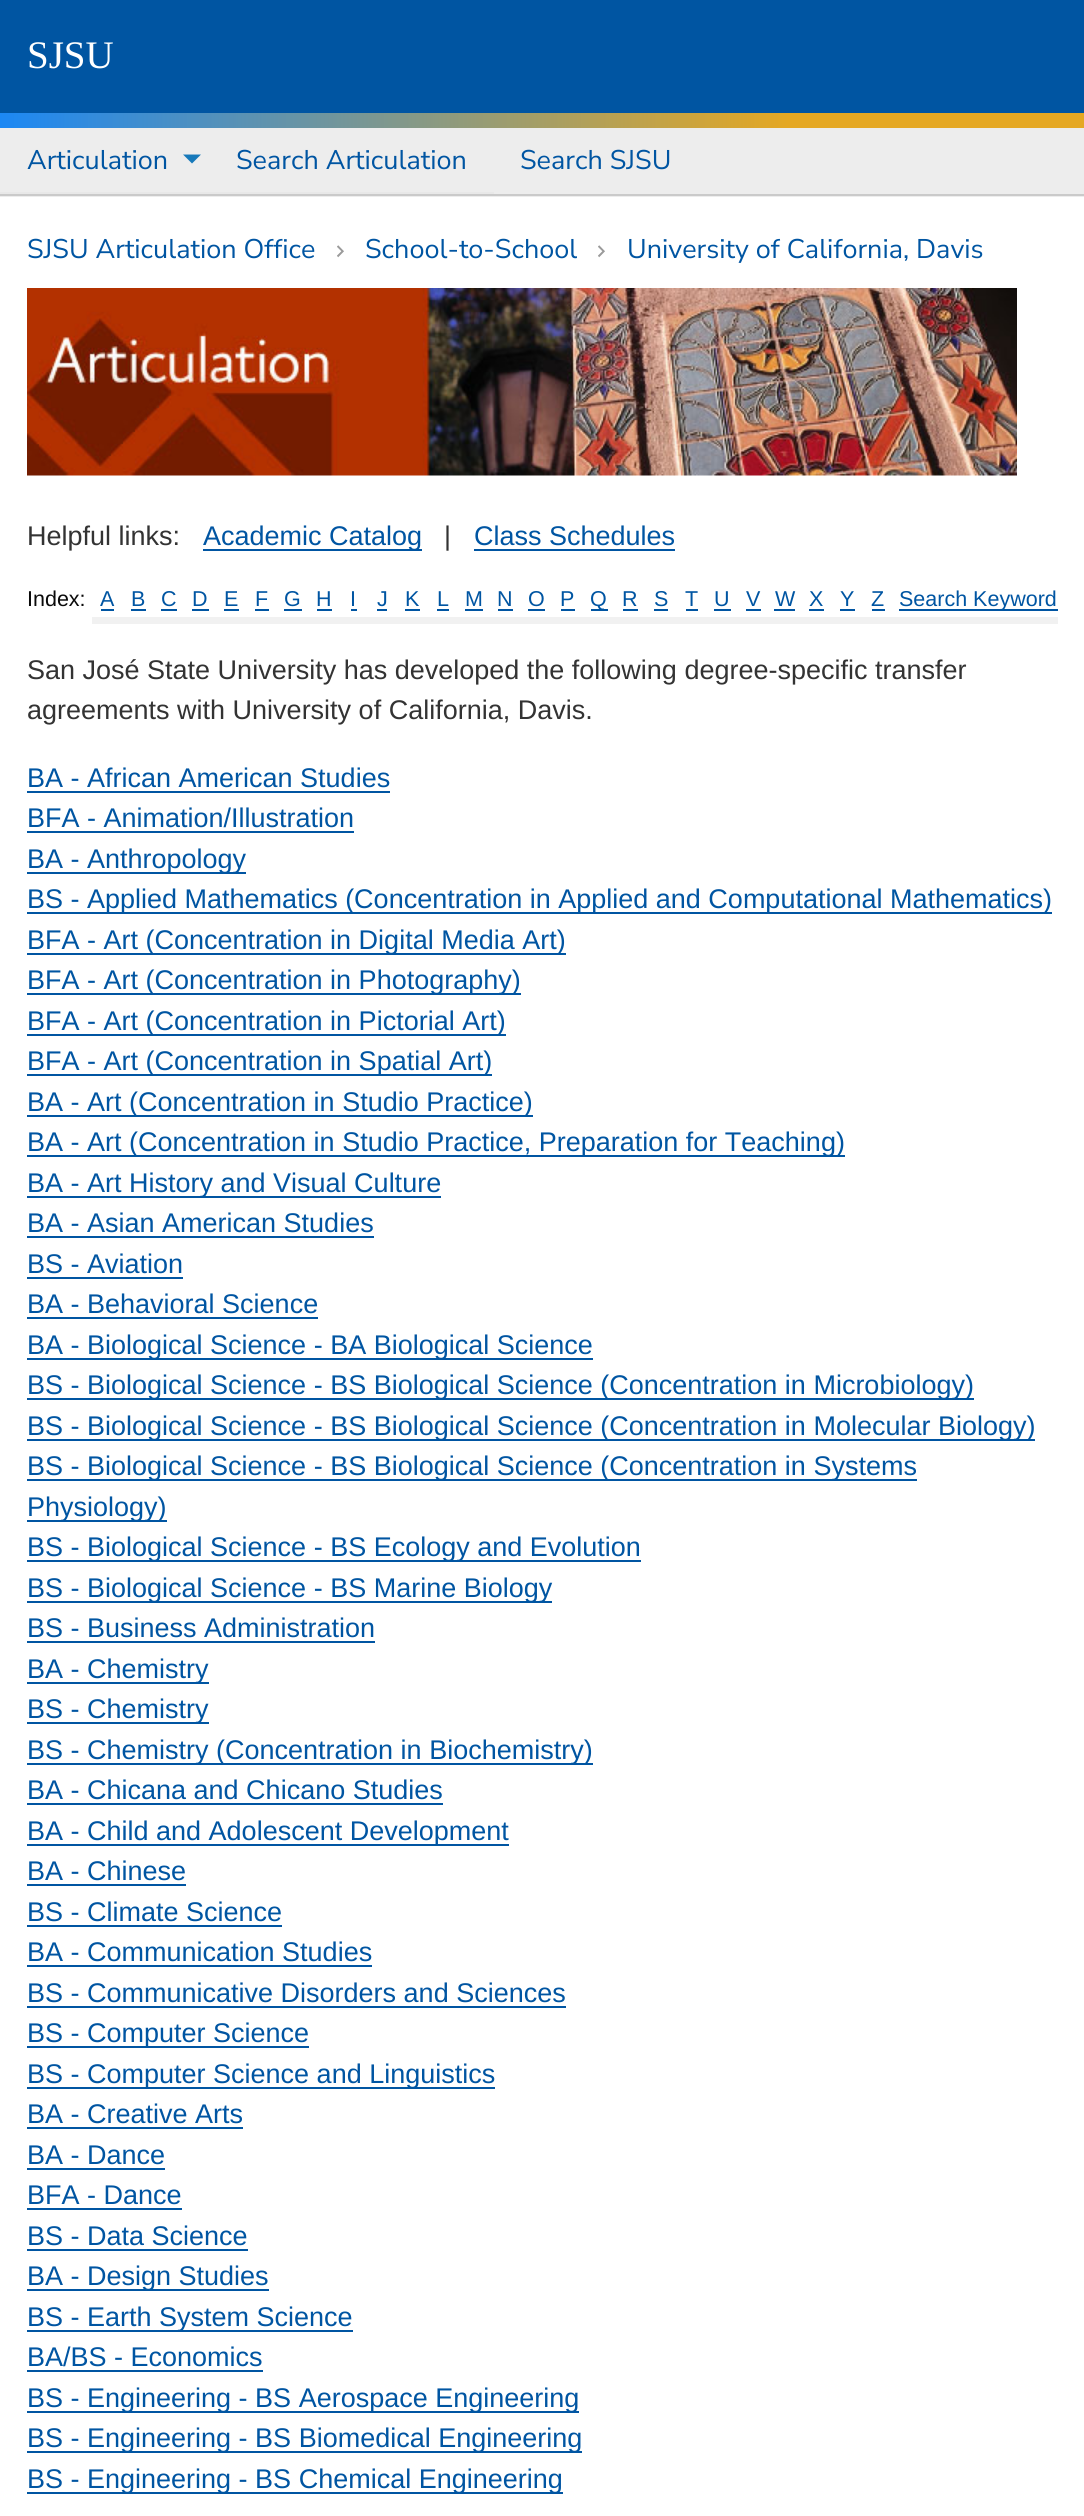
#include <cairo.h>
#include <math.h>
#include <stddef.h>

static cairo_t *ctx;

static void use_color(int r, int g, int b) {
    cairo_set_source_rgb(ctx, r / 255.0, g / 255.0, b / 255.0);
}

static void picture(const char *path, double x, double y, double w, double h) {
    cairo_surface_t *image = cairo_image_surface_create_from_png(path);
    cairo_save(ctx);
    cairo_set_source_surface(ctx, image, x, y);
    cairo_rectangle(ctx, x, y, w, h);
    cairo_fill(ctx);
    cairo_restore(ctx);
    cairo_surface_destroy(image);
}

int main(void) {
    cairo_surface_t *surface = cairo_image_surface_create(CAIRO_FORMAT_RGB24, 1084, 2516);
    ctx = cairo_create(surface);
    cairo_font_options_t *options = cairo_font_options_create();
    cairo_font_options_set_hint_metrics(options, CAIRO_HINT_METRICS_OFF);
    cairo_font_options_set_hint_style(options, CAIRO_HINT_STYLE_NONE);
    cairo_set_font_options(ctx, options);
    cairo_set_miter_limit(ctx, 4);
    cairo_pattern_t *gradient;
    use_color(255, 255, 255);
    cairo_paint(ctx);
    use_color(0, 85, 162);
    cairo_rectangle(ctx, 0, 0, 1084, 113);
    cairo_fill(ctx);
    cairo_select_font_face(ctx, "Liberation Serif", CAIRO_FONT_SLANT_NORMAL, CAIRO_FONT_WEIGHT_NORMAL);
    cairo_set_font_size(ctx, 39);
    use_color(255, 255, 255);
    cairo_move_to(ctx, 27, 68);
    cairo_show_text(ctx, "SJSU");
    gradient = cairo_pattern_create_linear(0, 120, 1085, 120);
    cairo_pattern_add_color_stop_rgba(gradient, 0, 0.11, 0.533, 0.957, 1);
    cairo_pattern_add_color_stop_rgba(gradient, 0.73, 0.898, 0.659, 0.137, 1);
    cairo_set_source(ctx, gradient);
    cairo_pattern_destroy(gradient);
    cairo_rectangle(ctx, 0, 113, 1084, 15);
    cairo_fill(ctx);
    use_color(237, 237, 237);
    cairo_rectangle(ctx, 0, 128, 1084, 69);
    cairo_fill(ctx);
    use_color(202, 202, 202);
    cairo_rectangle(ctx, 0, 194, 1084, 2);
    cairo_fill(ctx);
    cairo_select_font_face(ctx, "Nunito Sans", CAIRO_FONT_SLANT_NORMAL, CAIRO_FONT_WEIGHT_NORMAL);
    cairo_set_font_size(ctx, 27);
    use_color(0, 85, 162);
    cairo_move_to(ctx, 27, 169);
    cairo_show_text(ctx, "Articulation");
    use_color(23, 121, 186);
    cairo_new_path(ctx);
    cairo_move_to(ctx, 183, 154.5);
    cairo_line_to(ctx, 201, 154.5);
    cairo_line_to(ctx, 192, 163.5);
    cairo_close_path(ctx);
    cairo_fill(ctx);
    use_color(232, 232, 232);
    cairo_rectangle(ctx, 0, 192, 494, 2);
    cairo_fill(ctx);
    use_color(0, 85, 162);
    cairo_move_to(ctx, 236, 169);
    cairo_show_text(ctx, "Search Articulation");
    cairo_move_to(ctx, 520, 169);
    cairo_show_text(ctx, "Search SJSU");
    cairo_move_to(ctx, 27, 258);
    cairo_show_text(ctx, "SJSU Articulation Office");
    picture("img1.png", 337, 245, 7, 13);
    cairo_move_to(ctx, 365, 258);
    cairo_show_text(ctx, "School-to-School");
    picture("img1.png", 598, 245, 7, 13);
    cairo_move_to(ctx, 627, 258);
    cairo_show_text(ctx, "University of California, Davis");
    picture("img2.png", 27, 288, 990, 188);
    cairo_select_font_face(ctx, "Liberation Sans", CAIRO_FONT_SLANT_NORMAL, CAIRO_FONT_WEIGHT_NORMAL);
    use_color(51, 51, 51);
    cairo_move_to(ctx, 27, 545);
    cairo_show_text(ctx, "Helpful links:");
    use_color(0, 85, 162);
    cairo_rectangle(ctx, 203, 549, 219, 2);
    cairo_fill(ctx);
    cairo_move_to(ctx, 203, 545);
    cairo_show_text(ctx, "Academic Catalog");
    use_color(51, 51, 51);
    cairo_move_to(ctx, 444, 545);
    cairo_show_text(ctx, "|");
    use_color(0, 85, 162);
    cairo_move_to(ctx, 474, 545);
    cairo_show_text(ctx, "Class Schedules");
    cairo_rectangle(ctx, 474, 549, 201, 2);
    cairo_fill(ctx);
    cairo_set_font_size(ctx, 21.5);
    use_color(10, 10, 10);
    cairo_move_to(ctx, 27, 606);
    cairo_show_text(ctx, "Index:");
    use_color(0, 85, 162);
    cairo_move_to(ctx, 100, 606);
    cairo_show_text(ctx, "A");
    cairo_rectangle(ctx, 101, 609, 13, 2);
    cairo_fill(ctx);
    cairo_move_to(ctx, 131, 606);
    cairo_show_text(ctx, "B");
    cairo_rectangle(ctx, 131, 609, 15, 2);
    cairo_fill(ctx);
    cairo_move_to(ctx, 161, 606);
    cairo_show_text(ctx, "C");
    cairo_rectangle(ctx, 161, 609, 16, 2);
    cairo_fill(ctx);
    cairo_move_to(ctx, 192, 606);
    cairo_show_text(ctx, "D");
    cairo_rectangle(ctx, 192, 609, 17, 2);
    cairo_fill(ctx);
    cairo_move_to(ctx, 224, 606);
    cairo_show_text(ctx, "E");
    cairo_rectangle(ctx, 224, 609, 15, 2);
    cairo_fill(ctx);
    cairo_move_to(ctx, 255, 606);
    cairo_show_text(ctx, "F");
    cairo_rectangle(ctx, 255, 609, 14, 2);
    cairo_fill(ctx);
    cairo_move_to(ctx, 284, 606);
    cairo_show_text(ctx, "G");
    cairo_rectangle(ctx, 284, 609, 18, 2);
    cairo_fill(ctx);
    cairo_move_to(ctx, 316, 606);
    cairo_show_text(ctx, "H");
    cairo_rectangle(ctx, 317, 609, 15, 2);
    cairo_fill(ctx);
    cairo_move_to(ctx, 350, 606);
    cairo_show_text(ctx, "I");
    cairo_rectangle(ctx, 351, 609, 6, 2);
    cairo_fill(ctx);
    cairo_move_to(ctx, 377, 606);
    cairo_show_text(ctx, "J");
    cairo_rectangle(ctx, 377, 609, 10, 2);
    cairo_fill(ctx);
    cairo_move_to(ctx, 405, 606);
    cairo_show_text(ctx, "K");
    cairo_rectangle(ctx, 405, 609, 15, 2);
    cairo_fill(ctx);
    cairo_move_to(ctx, 437, 606);
    cairo_show_text(ctx, "L");
    cairo_rectangle(ctx, 437, 609, 12, 2);
    cairo_fill(ctx);
    cairo_move_to(ctx, 465, 606);
    cairo_show_text(ctx, "M");
    cairo_rectangle(ctx, 465, 609, 18, 2);
    cairo_fill(ctx);
    cairo_move_to(ctx, 497, 606);
    cairo_show_text(ctx, "N");
    cairo_rectangle(ctx, 498, 609, 15, 2);
    cairo_fill(ctx);
    cairo_move_to(ctx, 528, 606);
    cairo_show_text(ctx, "O");
    cairo_rectangle(ctx, 528, 609, 17, 2);
    cairo_fill(ctx);
    cairo_move_to(ctx, 560, 606);
    cairo_show_text(ctx, "P");
    cairo_rectangle(ctx, 561, 609, 14, 2);
    cairo_fill(ctx);
    cairo_rectangle(ctx, 591, 609, 17, 2);
    cairo_fill(ctx);
    cairo_move_to(ctx, 590, 606);
    cairo_show_text(ctx, "Q");
    cairo_move_to(ctx, 622, 606);
    cairo_show_text(ctx, "R");
    cairo_rectangle(ctx, 623, 609, 15, 2);
    cairo_fill(ctx);
    cairo_move_to(ctx, 654, 606);
    cairo_show_text(ctx, "S");
    cairo_rectangle(ctx, 654, 609, 14, 2);
    cairo_fill(ctx);
    cairo_move_to(ctx, 685, 606);
    cairo_show_text(ctx, "T");
    cairo_rectangle(ctx, 686, 609, 12, 2);
    cairo_fill(ctx);
    cairo_move_to(ctx, 714, 606);
    cairo_show_text(ctx, "U");
    cairo_rectangle(ctx, 714, 609, 17, 2);
    cairo_fill(ctx);
    cairo_move_to(ctx, 746, 606);
    cairo_show_text(ctx, "V");
    cairo_rectangle(ctx, 746, 609, 15, 2);
    cairo_fill(ctx);
    cairo_move_to(ctx, 775, 606);
    cairo_show_text(ctx, "W");
    cairo_rectangle(ctx, 774, 609, 21, 2);
    cairo_fill(ctx);
    cairo_move_to(ctx, 809, 606);
    cairo_show_text(ctx, "X");
    cairo_rectangle(ctx, 809, 609, 15, 2);
    cairo_fill(ctx);
    cairo_move_to(ctx, 840, 606);
    cairo_show_text(ctx, "Y");
    cairo_rectangle(ctx, 840, 609, 15, 2);
    cairo_fill(ctx);
    cairo_move_to(ctx, 871, 606);
    cairo_show_text(ctx, "Z");
    cairo_rectangle(ctx, 872, 609, 13, 2);
    cairo_fill(ctx);
    cairo_rectangle(ctx, 899, 609, 159, 2);
    cairo_fill(ctx);
    cairo_move_to(ctx, 899, 606);
    cairo_show_text(ctx, "Search Keyword");
    use_color(241, 241, 241);
    cairo_rectangle(ctx, 92, 617, 966, 7);
    cairo_fill(ctx);
    cairo_set_font_size(ctx, 27);
    use_color(51, 51, 51);
    cairo_move_to(ctx, 27, 679);
    cairo_show_text(ctx, "San José State University has developed the following degree-specific transfer");
    cairo_move_to(ctx, 27, 719);
    cairo_show_text(ctx, "agreements with University of California, Davis.");
    use_color(0, 85, 162);
    cairo_move_to(ctx, 27, 787);
    cairo_show_text(ctx, "BA - African American Studies");
    cairo_rectangle(ctx, 27, 791, 363, 2);
    cairo_fill(ctx);
    cairo_move_to(ctx, 27, 827);
    cairo_show_text(ctx, "BFA - Animation/Illustration");
    cairo_rectangle(ctx, 27, 831, 327, 2);
    cairo_fill(ctx);
    cairo_rectangle(ctx, 27, 872, 219, 2);
    cairo_fill(ctx);
    cairo_move_to(ctx, 27, 868);
    cairo_show_text(ctx, "BA - Anthropology");
    cairo_rectangle(ctx, 27, 912, 1025, 2);
    cairo_fill(ctx);
    cairo_move_to(ctx, 27, 908);
    cairo_show_text(ctx, "BS - Applied Mathematics (Concentration in Applied and Computational Mathematics)");
    cairo_rectangle(ctx, 27, 953, 539, 2);
    cairo_fill(ctx);
    cairo_move_to(ctx, 27, 949);
    cairo_show_text(ctx, "BFA - Art (Concentration in Digital Media Art)");
    cairo_rectangle(ctx, 27, 993, 494, 2);
    cairo_fill(ctx);
    cairo_move_to(ctx, 27, 989);
    cairo_show_text(ctx, "BFA - Art (Concentration in Photography)");
    cairo_rectangle(ctx, 27, 1034, 479, 2);
    cairo_fill(ctx);
    cairo_move_to(ctx, 27, 1030);
    cairo_show_text(ctx, "BFA - Art (Concentration in Pictorial Art)");
    cairo_rectangle(ctx, 27, 1074, 465, 2);
    cairo_fill(ctx);
    cairo_move_to(ctx, 27, 1070);
    cairo_show_text(ctx, "BFA - Art (Concentration in Spatial Art)");
    cairo_rectangle(ctx, 27, 1115, 506, 2);
    cairo_fill(ctx);
    cairo_move_to(ctx, 27, 1111);
    cairo_show_text(ctx, "BA - Art (Concentration in Studio Practice)");
    cairo_rectangle(ctx, 27, 1155, 818, 2);
    cairo_fill(ctx);
    cairo_move_to(ctx, 27, 1151);
    cairo_show_text(ctx, "BA - Art (Concentration in Studio Practice, Preparation for Teaching)");
    cairo_rectangle(ctx, 27, 1196, 414, 2);
    cairo_fill(ctx);
    cairo_move_to(ctx, 27, 1192);
    cairo_show_text(ctx, "BA - Art History and Visual Culture");
    cairo_move_to(ctx, 27, 1232);
    cairo_show_text(ctx, "BA - Asian American Studies");
    cairo_rectangle(ctx, 27, 1236, 347, 2);
    cairo_fill(ctx);
    cairo_move_to(ctx, 27, 1273);
    cairo_show_text(ctx, "BS - Aviation");
    cairo_rectangle(ctx, 27, 1277, 156, 2);
    cairo_fill(ctx);
    cairo_move_to(ctx, 27, 1313);
    cairo_show_text(ctx, "BA - Behavioral Science");
    cairo_rectangle(ctx, 27, 1317, 291, 2);
    cairo_fill(ctx);
    cairo_rectangle(ctx, 27, 1358, 566, 2);
    cairo_fill(ctx);
    cairo_move_to(ctx, 27, 1354);
    cairo_show_text(ctx, "BA - Biological Science - BA Biological Science");
    cairo_rectangle(ctx, 27, 1398, 947, 2);
    cairo_fill(ctx);
    cairo_move_to(ctx, 27, 1394);
    cairo_show_text(ctx, "BS - Biological Science - BS Biological Science (Concentration in Microbiology)");
    cairo_rectangle(ctx, 27, 1439, 1008, 2);
    cairo_fill(ctx);
    cairo_move_to(ctx, 27, 1435);
    cairo_show_text(ctx, "BS - Biological Science - BS Biological Science (Concentration in Molecular Biology)");
    cairo_rectangle(ctx, 27, 1479, 890, 2);
    cairo_fill(ctx);
    cairo_move_to(ctx, 27, 1475);
    cairo_show_text(ctx, "BS - Biological Science - BS Biological Science (Concentration in Systems");
    cairo_rectangle(ctx, 27, 1520, 140, 2);
    cairo_fill(ctx);
    cairo_move_to(ctx, 27, 1516);
    cairo_show_text(ctx, "Physiology)");
    cairo_rectangle(ctx, 27, 1560, 614, 2);
    cairo_fill(ctx);
    cairo_move_to(ctx, 27, 1556);
    cairo_show_text(ctx, "BS - Biological Science - BS Ecology and Evolution");
    cairo_rectangle(ctx, 27, 1601, 525, 2);
    cairo_fill(ctx);
    cairo_move_to(ctx, 27, 1597);
    cairo_show_text(ctx, "BS - Biological Science - BS Marine Biology");
    cairo_move_to(ctx, 27, 1637);
    cairo_show_text(ctx, "BS - Business Administration");
    cairo_rectangle(ctx, 27, 1641, 348, 2);
    cairo_fill(ctx);
    cairo_rectangle(ctx, 27, 1682, 182, 2);
    cairo_fill(ctx);
    cairo_move_to(ctx, 27, 1678);
    cairo_show_text(ctx, "BA - Chemistry");
    cairo_rectangle(ctx, 27, 1722, 182, 2);
    cairo_fill(ctx);
    cairo_move_to(ctx, 27, 1718);
    cairo_show_text(ctx, "BS - Chemistry");
    cairo_rectangle(ctx, 27, 1763, 566, 2);
    cairo_fill(ctx);
    cairo_move_to(ctx, 27, 1759);
    cairo_show_text(ctx, "BS - Chemistry (Concentration in Biochemistry)");
    cairo_move_to(ctx, 27, 1799);
    cairo_show_text(ctx, "BA - Chicana and Chicano Studies");
    cairo_rectangle(ctx, 27, 1803, 416, 2);
    cairo_fill(ctx);
    cairo_rectangle(ctx, 27, 1844, 482, 2);
    cairo_fill(ctx);
    cairo_move_to(ctx, 27, 1840);
    cairo_show_text(ctx, "BA - Child and Adolescent Development");
    cairo_move_to(ctx, 27, 1880);
    cairo_show_text(ctx, "BA - Chinese");
    cairo_rectangle(ctx, 27, 1884, 159, 2);
    cairo_fill(ctx);
    cairo_move_to(ctx, 27, 1921);
    cairo_show_text(ctx, "BS - Climate Science");
    cairo_rectangle(ctx, 27, 1925, 255, 2);
    cairo_fill(ctx);
    cairo_move_to(ctx, 27, 1961);
    cairo_show_text(ctx, "BA - Communication Studies");
    cairo_rectangle(ctx, 27, 1965, 345, 2);
    cairo_fill(ctx);
    cairo_move_to(ctx, 27, 2002);
    cairo_show_text(ctx, "BS - Communicative Disorders and Sciences");
    cairo_rectangle(ctx, 27, 2006, 539, 2);
    cairo_fill(ctx);
    cairo_rectangle(ctx, 27, 2046, 282, 2);
    cairo_fill(ctx);
    cairo_move_to(ctx, 27, 2042);
    cairo_show_text(ctx, "BS - Computer Science");
    cairo_rectangle(ctx, 27, 2087, 468, 2);
    cairo_fill(ctx);
    cairo_move_to(ctx, 27, 2083);
    cairo_show_text(ctx, "BS - Computer Science and Linguistics");
    cairo_move_to(ctx, 27, 2123);
    cairo_show_text(ctx, "BA - Creative Arts");
    cairo_rectangle(ctx, 27, 2127, 216, 2);
    cairo_fill(ctx);
    cairo_move_to(ctx, 27, 2164);
    cairo_show_text(ctx, "BA - Dance");
    cairo_rectangle(ctx, 27, 2168, 138, 2);
    cairo_fill(ctx);
    cairo_move_to(ctx, 27, 2204);
    cairo_show_text(ctx, "BFA - Dance");
    cairo_rectangle(ctx, 27, 2208, 155, 2);
    cairo_fill(ctx);
    cairo_move_to(ctx, 27, 2245);
    cairo_show_text(ctx, "BS - Data Science");
    cairo_rectangle(ctx, 27, 2249, 221, 2);
    cairo_fill(ctx);
    cairo_rectangle(ctx, 27, 2289, 242, 2);
    cairo_fill(ctx);
    cairo_move_to(ctx, 27, 2285);
    cairo_show_text(ctx, "BA - Design Studies");
    cairo_rectangle(ctx, 27, 2330, 326, 2);
    cairo_fill(ctx);
    cairo_move_to(ctx, 27, 2326);
    cairo_show_text(ctx, "BS - Earth System Science");
    cairo_move_to(ctx, 27, 2366);
    cairo_show_text(ctx, "BA/BS - Economics");
    cairo_rectangle(ctx, 27, 2370, 236, 2);
    cairo_fill(ctx);
    cairo_rectangle(ctx, 27, 2411, 552, 2);
    cairo_fill(ctx);
    cairo_move_to(ctx, 27, 2407);
    cairo_show_text(ctx, "BS - Engineering - BS Aerospace Engineering");
    cairo_rectangle(ctx, 27, 2451, 555, 2);
    cairo_fill(ctx);
    cairo_move_to(ctx, 27, 2447);
    cairo_show_text(ctx, "BS - Engineering - BS Biomedical Engineering");
    cairo_rectangle(ctx, 27, 2492, 536, 2);
    cairo_fill(ctx);
    cairo_move_to(ctx, 27, 2488);
    cairo_show_text(ctx, "BS - Engineering - BS Chemical Engineering");
    cairo_surface_write_to_png(surface, "result.png");
    cairo_font_options_destroy(options);
    cairo_destroy(ctx);
    cairo_surface_destroy(surface);
    return 0;
}
